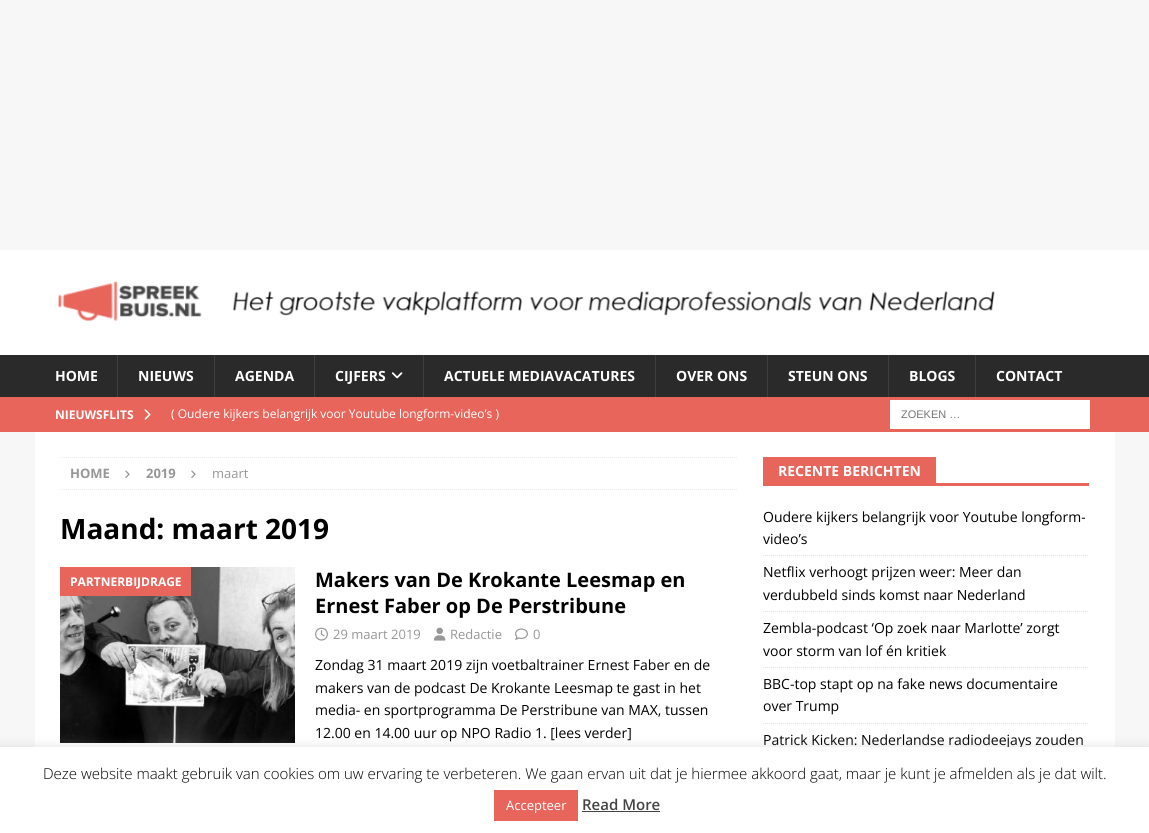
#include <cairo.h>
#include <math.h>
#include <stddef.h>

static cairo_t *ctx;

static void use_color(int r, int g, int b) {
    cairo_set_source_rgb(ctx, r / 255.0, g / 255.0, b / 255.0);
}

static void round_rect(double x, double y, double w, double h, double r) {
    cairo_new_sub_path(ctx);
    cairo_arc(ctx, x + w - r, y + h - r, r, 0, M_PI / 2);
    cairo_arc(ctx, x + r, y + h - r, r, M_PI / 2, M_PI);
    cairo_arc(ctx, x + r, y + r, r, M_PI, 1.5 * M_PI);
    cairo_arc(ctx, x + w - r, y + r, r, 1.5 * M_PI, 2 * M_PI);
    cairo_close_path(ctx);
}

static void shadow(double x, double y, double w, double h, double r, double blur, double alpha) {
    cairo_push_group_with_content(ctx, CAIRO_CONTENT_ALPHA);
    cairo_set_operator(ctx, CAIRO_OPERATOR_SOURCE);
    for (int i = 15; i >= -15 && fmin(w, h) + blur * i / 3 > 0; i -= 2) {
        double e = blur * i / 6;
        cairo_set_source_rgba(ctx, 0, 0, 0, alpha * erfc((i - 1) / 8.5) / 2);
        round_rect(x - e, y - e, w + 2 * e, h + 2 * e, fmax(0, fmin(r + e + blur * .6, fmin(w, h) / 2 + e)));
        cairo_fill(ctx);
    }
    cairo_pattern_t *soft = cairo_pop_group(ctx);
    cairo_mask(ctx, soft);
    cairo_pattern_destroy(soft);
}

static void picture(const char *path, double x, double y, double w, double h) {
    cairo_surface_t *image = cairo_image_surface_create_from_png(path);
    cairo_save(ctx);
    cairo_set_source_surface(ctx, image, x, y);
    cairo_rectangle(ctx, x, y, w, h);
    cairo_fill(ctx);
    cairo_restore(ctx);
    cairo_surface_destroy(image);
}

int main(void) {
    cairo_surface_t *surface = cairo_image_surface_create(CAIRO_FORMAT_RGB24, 1149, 833);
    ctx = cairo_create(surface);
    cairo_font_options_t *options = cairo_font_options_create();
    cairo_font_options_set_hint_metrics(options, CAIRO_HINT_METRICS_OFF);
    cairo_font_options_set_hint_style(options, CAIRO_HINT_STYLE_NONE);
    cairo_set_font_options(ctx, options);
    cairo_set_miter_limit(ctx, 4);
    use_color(247, 247, 247);
    cairo_paint(ctx);
    use_color(255, 255, 255);
    cairo_rectangle(ctx, 0, 250, 1149, 105);
    cairo_fill(ctx);
    picture("img1.png", 55, 281, 940, 40);
    use_color(42, 42, 42);
    cairo_rectangle(ctx, 0, 355, 1149, 42);
    cairo_fill(ctx);
    cairo_select_font_face(ctx, "Open Sans", CAIRO_FONT_SLANT_NORMAL, CAIRO_FONT_WEIGHT_BOLD);
    cairo_set_font_size(ctx, 14);
    use_color(255, 255, 255);
    cairo_move_to(ctx, 55, 381);
    cairo_show_text(ctx, "HOME");
    use_color(63, 63, 63);
    cairo_rectangle(ctx, 117, 355, 1, 42);
    cairo_fill(ctx);
    use_color(255, 255, 255);
    cairo_move_to(ctx, 138, 381);
    cairo_show_text(ctx, "NIEUWS");
    use_color(63, 63, 63);
    cairo_rectangle(ctx, 214, 355, 1, 42);
    cairo_fill(ctx);
    use_color(255, 255, 255);
    cairo_move_to(ctx, 235, 381);
    cairo_show_text(ctx, "AGENDA");
    use_color(63, 63, 63);
    cairo_rectangle(ctx, 314, 355, 1, 42);
    cairo_fill(ctx);
    use_color(255, 255, 255);
    cairo_move_to(ctx, 335, 381);
    cairo_show_text(ctx, "CIJFERS");
    picture("img2.png", 391, 372, 12, 7);
    use_color(63, 63, 63);
    cairo_rectangle(ctx, 423, 355, 1, 42);
    cairo_fill(ctx);
    use_color(255, 255, 255);
    cairo_move_to(ctx, 444, 381);
    cairo_show_text(ctx, "ACTUELE MEDIAVACATURES");
    use_color(63, 63, 63);
    cairo_rectangle(ctx, 655, 355, 1, 42);
    cairo_fill(ctx);
    use_color(255, 255, 255);
    cairo_move_to(ctx, 676, 381);
    cairo_show_text(ctx, "OVER ONS");
    use_color(63, 63, 63);
    cairo_rectangle(ctx, 767, 355, 1, 42);
    cairo_fill(ctx);
    use_color(255, 255, 255);
    cairo_move_to(ctx, 788, 381);
    cairo_show_text(ctx, "STEUN ONS");
    use_color(63, 63, 63);
    cairo_rectangle(ctx, 888, 355, 1, 42);
    cairo_fill(ctx);
    use_color(255, 255, 255);
    cairo_move_to(ctx, 909, 381);
    cairo_show_text(ctx, "BLOGS");
    use_color(63, 63, 63);
    cairo_rectangle(ctx, 975, 355, 1, 42);
    cairo_fill(ctx);
    use_color(255, 255, 255);
    cairo_move_to(ctx, 996, 381);
    cairo_show_text(ctx, "CONTACT");
    use_color(232, 101, 91);
    cairo_rectangle(ctx, 0, 397, 1149, 35);
    cairo_fill(ctx);
    cairo_set_font_size(ctx, 12);
    use_color(255, 255, 255);
    cairo_move_to(ctx, 55, 419);
    cairo_show_text(ctx, "NIEUWSFLITS");
    picture("img3.png", 144, 409, 7, 11);
    cairo_select_font_face(ctx, "Open Sans", CAIRO_FONT_SLANT_NORMAL, CAIRO_FONT_WEIGHT_NORMAL);
    cairo_move_to(ctx, 171, 418);
    cairo_show_text(ctx, "( Oudere kijkers belangrijk voor Youtube longform-video’s )");
    cairo_rectangle(ctx, 890, 400, 200, 29);
    cairo_fill(ctx);
    cairo_select_font_face(ctx, "Liberation Sans", CAIRO_FONT_SLANT_NORMAL, CAIRO_FONT_WEIGHT_NORMAL);
    cairo_set_font_size(ctx, 11);
    use_color(117, 117, 117);
    cairo_move_to(ctx, 901, 418);
    cairo_show_text(ctx, "ZOEKEN …");
    use_color(255, 255, 255);
    cairo_rectangle(ctx, 35, 432, 1080, 315);
    cairo_fill(ctx);
    cairo_new_path(ctx);
    cairo_move_to(ctx, 60, 457.5);
    cairo_line_to(ctx, 738, 457.5);
    use_color(235, 235, 235);
    cairo_set_line_width(ctx, 1);
    cairo_set_dash(ctx, (double[]){1, 1}, 2, 0);
    cairo_stroke(ctx);
    cairo_new_path(ctx);
    cairo_move_to(ctx, 60, 489.5);
    cairo_line_to(ctx, 738, 489.5);
    cairo_stroke(ctx);
    cairo_select_font_face(ctx, "Open Sans", CAIRO_FONT_SLANT_NORMAL, CAIRO_FONT_WEIGHT_BOLD);
    cairo_set_font_size(ctx, 13);
    use_color(151, 151, 151);
    cairo_move_to(ctx, 70, 478);
    cairo_show_text(ctx, "HOME");
    picture("img4.png", 125, 470, 5, 8);
    cairo_move_to(ctx, 146, 478);
    cairo_show_text(ctx, "2019");
    picture("img4.png", 191, 470, 5, 8);
    cairo_select_font_face(ctx, "Open Sans", CAIRO_FONT_SLANT_NORMAL, CAIRO_FONT_WEIGHT_NORMAL);
    cairo_move_to(ctx, 212, 478);
    cairo_show_text(ctx, "maart");
    cairo_select_font_face(ctx, "Open Sans", CAIRO_FONT_SLANT_NORMAL, CAIRO_FONT_WEIGHT_BOLD);
    cairo_set_font_size(ctx, 28);
    use_color(0, 0, 0);
    cairo_move_to(ctx, 60, 539);
    cairo_show_text(ctx, "Maand: maart 2019");
    picture("img5.png", 60, 567, 235, 176);
    use_color(232, 101, 91);
    cairo_rectangle(ctx, 60, 567, 131, 29);
    cairo_fill(ctx);
    cairo_set_font_size(ctx, 12);
    use_color(255, 255, 255);
    cairo_move_to(ctx, 70, 586);
    cairo_show_text(ctx, "PARTNERBIJDRAGE");
    cairo_set_font_size(ctx, 20);
    use_color(0, 0, 0);
    cairo_move_to(ctx, 315, 587);
    cairo_show_text(ctx, "Makers van De Krokante Leesmap en");
    cairo_move_to(ctx, 315, 613);
    cairo_show_text(ctx, "Ernest Faber op De Perstribune");
    picture("img6.png", 315, 627, 13, 14);
    cairo_select_font_face(ctx, "Open Sans", CAIRO_FONT_SLANT_NORMAL, CAIRO_FONT_WEIGHT_NORMAL);
    cairo_set_font_size(ctx, 13);
    use_color(151, 151, 151);
    cairo_move_to(ctx, 333, 639);
    cairo_show_text(ctx, "29 maart 2019");
    picture("img7.png", 434, 627, 12, 14);
    cairo_move_to(ctx, 450, 639);
    cairo_show_text(ctx, "Redactie");
    picture("img8.png", 515, 628, 13, 12);
    cairo_move_to(ctx, 533, 639);
    cairo_show_text(ctx, "0");
    cairo_set_font_size(ctx, 14);
    use_color(0, 0, 0);
    cairo_move_to(ctx, 315, 670);
    cairo_show_text(ctx, "Zondag 31 maart 2019 zijn voetbaltrainer Ernest Faber en de");
    cairo_move_to(ctx, 315, 693);
    cairo_show_text(ctx, "makers van de podcast De Krokante Leesmap te gast in het");
    cairo_move_to(ctx, 315, 715);
    cairo_show_text(ctx, "media- en sportprogramma De Perstribune van MAX, tussen");
    cairo_move_to(ctx, 315, 738);
    cairo_show_text(ctx, "12.00 en 14.00 uur op NPO Radio 1. [lees verder]");
    use_color(232, 101, 91);
    cairo_rectangle(ctx, 763, 483, 326, 3);
    cairo_fill(ctx);
    cairo_rectangle(ctx, 763, 457, 173, 26);
    cairo_fill(ctx);
    cairo_select_font_face(ctx, "Open Sans", CAIRO_FONT_SLANT_NORMAL, CAIRO_FONT_WEIGHT_BOLD);
    use_color(255, 255, 255);
    cairo_move_to(ctx, 778, 476);
    cairo_show_text(ctx, "RECENTE BERICHTEN");
    cairo_new_path(ctx);
    cairo_move_to(ctx, 763, 555.5);
    cairo_line_to(ctx, 1089, 555.5);
    use_color(229, 229, 229);
    cairo_stroke(ctx);
    cairo_select_font_face(ctx, "Open Sans", CAIRO_FONT_SLANT_NORMAL, CAIRO_FONT_WEIGHT_NORMAL);
    use_color(0, 0, 0);
    cairo_move_to(ctx, 763, 522);
    cairo_show_text(ctx, "Oudere kijkers belangrijk voor Youtube longform-");
    cairo_move_to(ctx, 763, 544);
    cairo_show_text(ctx, "video’s");
    cairo_new_path(ctx);
    cairo_move_to(ctx, 763, 611.5);
    cairo_line_to(ctx, 1089, 611.5);
    use_color(229, 229, 229);
    cairo_stroke(ctx);
    use_color(0, 0, 0);
    cairo_move_to(ctx, 763, 577);
    cairo_show_text(ctx, "Netflix verhoogt prijzen weer: Meer dan");
    cairo_move_to(ctx, 763, 600);
    cairo_show_text(ctx, "verdubbeld sinds komst naar Nederland");
    cairo_new_path(ctx);
    cairo_move_to(ctx, 763, 667.5);
    cairo_line_to(ctx, 1089, 667.5);
    use_color(229, 229, 229);
    cairo_stroke(ctx);
    use_color(0, 0, 0);
    cairo_move_to(ctx, 763, 633);
    cairo_show_text(ctx, "Zembla-podcast ‘Op zoek naar Marlotte’ zorgt");
    cairo_move_to(ctx, 763, 656);
    cairo_show_text(ctx, "voor storm van lof én kritiek");
    cairo_new_path(ctx);
    cairo_move_to(ctx, 763, 723.5);
    cairo_line_to(ctx, 1089, 723.5);
    use_color(229, 229, 229);
    cairo_stroke(ctx);
    use_color(0, 0, 0);
    cairo_move_to(ctx, 763, 689);
    cairo_show_text(ctx, "BBC-top stapt op na fake news documentaire");
    cairo_move_to(ctx, 763, 711);
    cairo_show_text(ctx, "over Trump");
    cairo_move_to(ctx, 763, 745);
    cairo_show_text(ctx, "Patrick Kicken: Nederlandse radiodeejays zouden");
    use_color(172, 171, 171);
    shadow(0, 746, 1149, 86, 0, 5, 0.3);
    use_color(255, 255, 255);
    cairo_rectangle(ctx, 0, 747, 1149, 86);
    cairo_fill(ctx);
    cairo_select_font_face(ctx, "Open Sans Light", CAIRO_FONT_SLANT_NORMAL, CAIRO_FONT_WEIGHT_NORMAL);
    cairo_set_font_size(ctx, 15);
    use_color(0, 0, 0);
    cairo_move_to(ctx, 43, 779);
    cairo_show_text(ctx, "Deze website maakt gebruik van cookies om uw ervaring te verbeteren. We gaan ervan uit dat je hiermee akkoord gaat, maar je kunt je afmelden als je dat wilt.");
    use_color(232, 101, 91);
    cairo_rectangle(ctx, 494, 790, 84, 31);
    cairo_fill(ctx);
    cairo_select_font_face(ctx, "Open Sans", CAIRO_FONT_SLANT_NORMAL, CAIRO_FONT_WEIGHT_NORMAL);
    cairo_set_font_size(ctx, 13);
    use_color(255, 255, 255);
    cairo_move_to(ctx, 506, 810);
    cairo_show_text(ctx, "Accepteer");
    cairo_select_font_face(ctx, "Open Sans SemiBold", CAIRO_FONT_SLANT_NORMAL, CAIRO_FONT_WEIGHT_NORMAL);
    cairo_set_font_size(ctx, 15);
    use_color(68, 68, 68);
    cairo_move_to(ctx, 582, 810);
    cairo_show_text(ctx, "Read More");
    cairo_rectangle(ctx, 582, 811, 78, 1);
    cairo_fill(ctx);
    cairo_surface_write_to_png(surface, "result.png");
    cairo_font_options_destroy(options);
    cairo_destroy(ctx);
    cairo_surface_destroy(surface);
    return 0;
}
